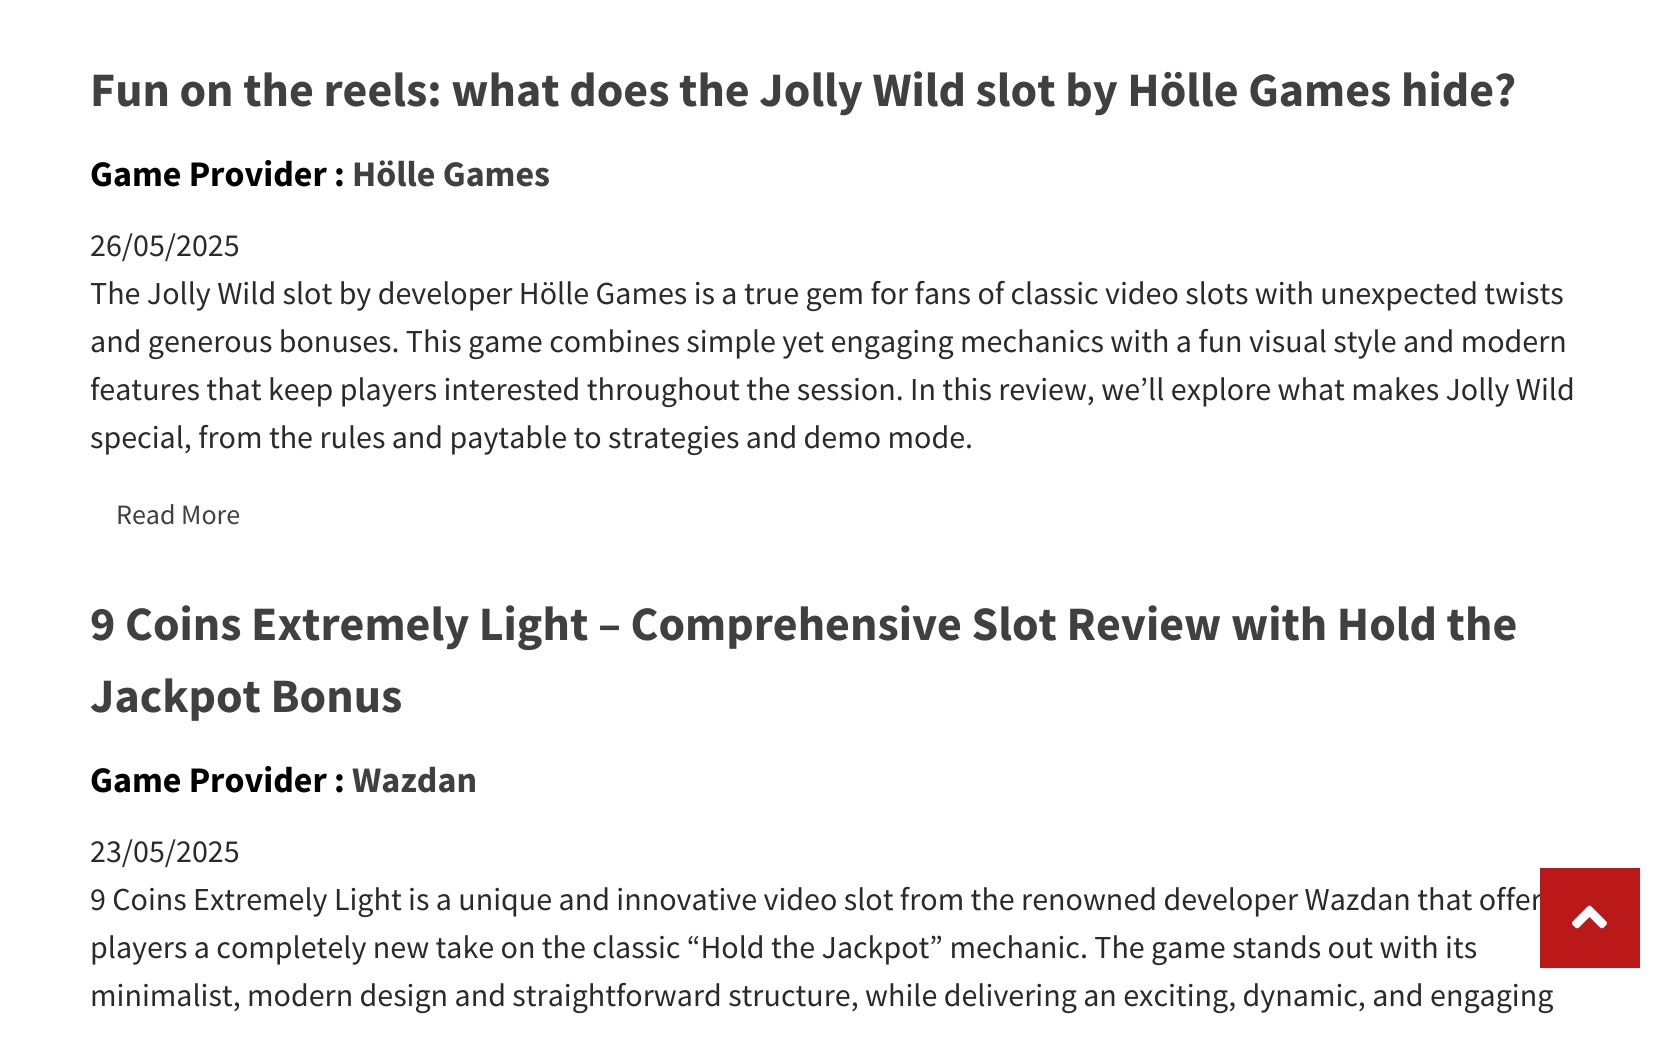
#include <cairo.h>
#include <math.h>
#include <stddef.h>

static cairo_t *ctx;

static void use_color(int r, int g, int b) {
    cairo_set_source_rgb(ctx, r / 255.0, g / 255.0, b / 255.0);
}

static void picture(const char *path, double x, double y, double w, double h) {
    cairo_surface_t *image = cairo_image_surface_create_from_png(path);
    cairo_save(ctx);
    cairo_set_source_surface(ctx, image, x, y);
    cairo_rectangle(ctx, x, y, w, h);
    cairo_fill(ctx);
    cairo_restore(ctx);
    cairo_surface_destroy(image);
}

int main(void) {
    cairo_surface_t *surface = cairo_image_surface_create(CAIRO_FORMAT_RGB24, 1680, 1048);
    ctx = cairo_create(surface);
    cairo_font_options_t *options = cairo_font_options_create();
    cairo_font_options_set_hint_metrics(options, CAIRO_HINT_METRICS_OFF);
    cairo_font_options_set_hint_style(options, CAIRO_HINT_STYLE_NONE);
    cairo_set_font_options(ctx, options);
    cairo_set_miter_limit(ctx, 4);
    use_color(255, 255, 255);
    cairo_paint(ctx);
    cairo_select_font_face(ctx, "Source Sans Pro", CAIRO_FONT_SLANT_NORMAL, CAIRO_FONT_WEIGHT_BOLD);
    cairo_set_font_size(ctx, 48);
    use_color(64, 64, 64);
    cairo_move_to(ctx, 90, 106);
    cairo_show_text(ctx, "Fun on the reels: what does the Jolly Wild slot by Hölle Games hide?");
    cairo_set_font_size(ctx, 36);
    use_color(0, 0, 0);
    cairo_move_to(ctx, 90, 186);
    cairo_show_text(ctx, "Game Provider :");
    use_color(64, 64, 64);
    cairo_move_to(ctx, 352, 186);
    cairo_show_text(ctx, "Hölle Games");
    cairo_select_font_face(ctx, "Source Sans Pro", CAIRO_FONT_SLANT_NORMAL, CAIRO_FONT_WEIGHT_NORMAL);
    cairo_set_font_size(ctx, 32);
    use_color(42, 42, 42);
    cairo_move_to(ctx, 90, 256);
    cairo_show_text(ctx, "26/05/2025");
    cairo_move_to(ctx, 90, 304);
    cairo_show_text(ctx, "The Jolly Wild slot by developer Hölle Games is a true gem for fans of classic video slots with unexpected twists");
    cairo_move_to(ctx, 90, 352);
    cairo_show_text(ctx, "and generous bonuses. This game combines simple yet engaging mechanics with a fun visual style and modern");
    cairo_move_to(ctx, 90, 400);
    cairo_show_text(ctx, "features that keep players interested throughout the session. In this review, we’ll explore what makes Jolly Wild");
    cairo_move_to(ctx, 90, 448);
    cairo_show_text(ctx, "special, from the rules and paytable to strategies and demo mode.");
    cairo_set_font_size(ctx, 28);
    use_color(64, 64, 64);
    cairo_move_to(ctx, 116, 524);
    cairo_show_text(ctx, "Read More");
    cairo_select_font_face(ctx, "Source Sans Pro", CAIRO_FONT_SLANT_NORMAL, CAIRO_FONT_WEIGHT_BOLD);
    cairo_set_font_size(ctx, 48);
    cairo_move_to(ctx, 90, 640);
    cairo_show_text(ctx, "9 Coins Extremely Light – Comprehensive Slot Review with Hold the");
    cairo_move_to(ctx, 90, 712);
    cairo_show_text(ctx, "Jackpot Bonus");
    cairo_set_font_size(ctx, 36);
    use_color(0, 0, 0);
    cairo_move_to(ctx, 90, 792);
    cairo_show_text(ctx, "Game Provider :");
    use_color(64, 64, 64);
    cairo_move_to(ctx, 352, 792);
    cairo_show_text(ctx, "Wazdan");
    cairo_select_font_face(ctx, "Source Sans Pro", CAIRO_FONT_SLANT_NORMAL, CAIRO_FONT_WEIGHT_NORMAL);
    cairo_set_font_size(ctx, 32);
    use_color(42, 42, 42);
    cairo_move_to(ctx, 90, 862);
    cairo_show_text(ctx, "23/05/2025");
    cairo_move_to(ctx, 90, 910);
    cairo_show_text(ctx, "9 Coins Extremely Light is a unique and innovative video slot from the renowned developer Wazdan that offer");
    cairo_move_to(ctx, 90, 958);
    cairo_show_text(ctx, "players a completely new take on the classic “Hold the Jackpot” mechanic. The game stands out with its");
    cairo_move_to(ctx, 90, 1006);
    cairo_show_text(ctx, "minimalist, modern design and straightforward structure, while delivering an exciting, dynamic, and engaging");
    use_color(187, 25, 25);
    cairo_rectangle(ctx, 1540, 868, 100, 100);
    cairo_fill(ctx);
    picture("img1.png", 1572, 905, 35, 24);
    cairo_surface_write_to_png(surface, "result.png");
    cairo_font_options_destroy(options);
    cairo_destroy(ctx);
    cairo_surface_destroy(surface);
    return 0;
}
